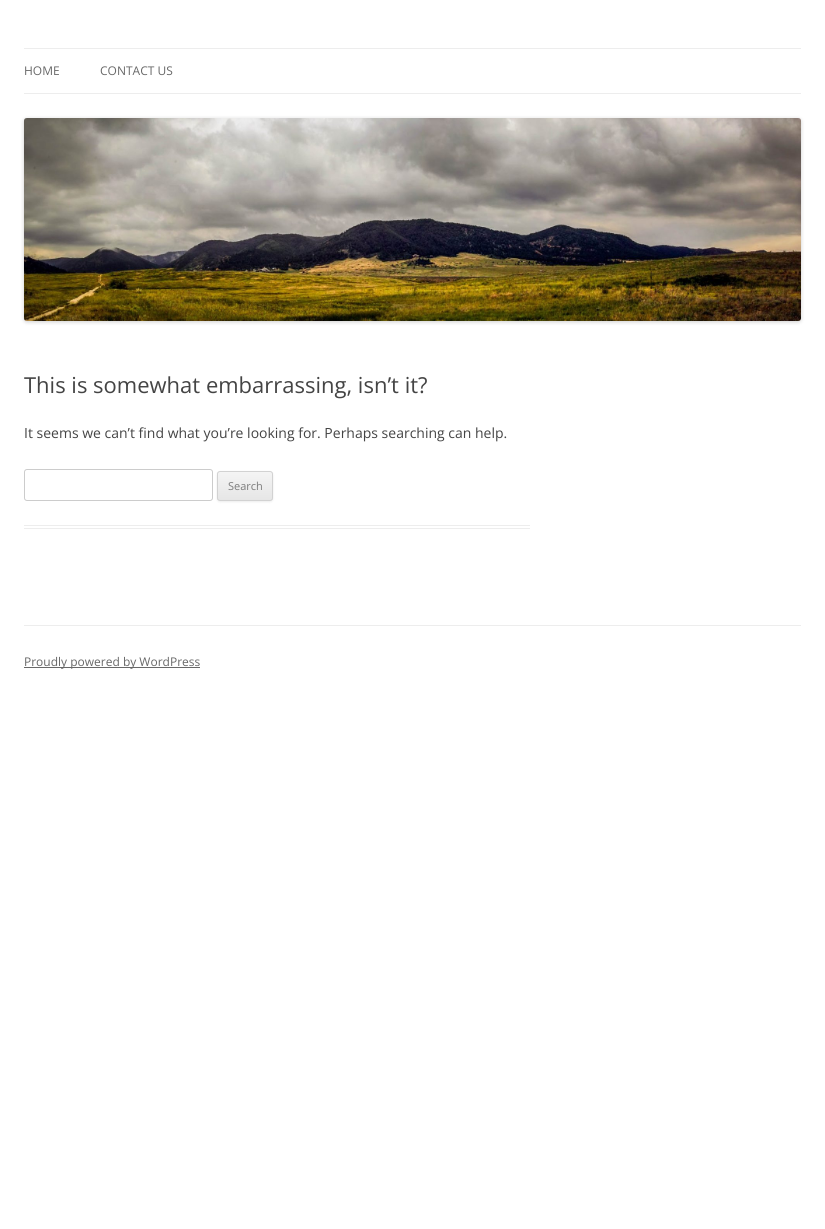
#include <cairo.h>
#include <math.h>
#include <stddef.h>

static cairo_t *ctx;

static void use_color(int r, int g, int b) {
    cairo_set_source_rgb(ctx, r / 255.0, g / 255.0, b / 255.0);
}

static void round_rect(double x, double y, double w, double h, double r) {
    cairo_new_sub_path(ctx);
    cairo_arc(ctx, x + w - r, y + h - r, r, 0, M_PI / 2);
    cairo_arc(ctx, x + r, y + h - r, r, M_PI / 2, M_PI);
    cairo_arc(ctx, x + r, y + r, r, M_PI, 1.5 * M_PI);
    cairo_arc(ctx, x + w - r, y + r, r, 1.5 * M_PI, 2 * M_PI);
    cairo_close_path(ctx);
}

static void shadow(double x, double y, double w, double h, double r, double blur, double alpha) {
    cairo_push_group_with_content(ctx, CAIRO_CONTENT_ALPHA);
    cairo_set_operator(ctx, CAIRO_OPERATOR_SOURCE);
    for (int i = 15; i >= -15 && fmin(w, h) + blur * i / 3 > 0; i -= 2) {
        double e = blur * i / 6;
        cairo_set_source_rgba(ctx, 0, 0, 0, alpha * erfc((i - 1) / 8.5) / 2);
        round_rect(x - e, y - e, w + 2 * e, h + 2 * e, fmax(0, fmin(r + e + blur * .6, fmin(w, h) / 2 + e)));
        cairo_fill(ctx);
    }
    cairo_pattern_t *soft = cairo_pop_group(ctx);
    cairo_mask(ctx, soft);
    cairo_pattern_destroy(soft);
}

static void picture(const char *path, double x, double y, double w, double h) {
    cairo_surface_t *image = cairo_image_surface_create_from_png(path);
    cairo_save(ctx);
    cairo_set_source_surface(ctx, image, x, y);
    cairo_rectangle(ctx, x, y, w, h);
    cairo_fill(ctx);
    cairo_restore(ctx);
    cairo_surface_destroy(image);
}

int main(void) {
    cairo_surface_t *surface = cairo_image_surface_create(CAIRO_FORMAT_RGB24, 825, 1229);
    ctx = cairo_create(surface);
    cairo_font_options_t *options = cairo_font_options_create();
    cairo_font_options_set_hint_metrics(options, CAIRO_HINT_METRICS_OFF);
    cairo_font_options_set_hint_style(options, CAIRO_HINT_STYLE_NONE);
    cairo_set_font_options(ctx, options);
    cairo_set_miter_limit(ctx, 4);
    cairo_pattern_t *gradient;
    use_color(255, 255, 255);
    cairo_paint(ctx);
    use_color(237, 237, 237);
    cairo_rectangle(ctx, 24, 48, 777, 1);
    cairo_fill(ctx);
    cairo_rectangle(ctx, 24, 93, 777, 1);
    cairo_fill(ctx);
    cairo_select_font_face(ctx, "Open Sans", CAIRO_FONT_SLANT_NORMAL, CAIRO_FONT_WEIGHT_NORMAL);
    cairo_set_font_size(ctx, 12);
    use_color(104, 104, 104);
    cairo_move_to(ctx, 24, 75);
    cairo_show_text(ctx, "HOME");
    cairo_move_to(ctx, 100, 75);
    cairo_show_text(ctx, "CONTACT US");
    use_color(0, 0, 0);
    shadow(24, 119, 777, 203, 3, 2, 0.2);
    picture("img1.png", 24, 118, 777, 203);
    use_color(237, 237, 237);
    cairo_rectangle(ctx, 24, 525, 506, 1);
    cairo_fill(ctx);
    cairo_rectangle(ctx, 24, 528, 506, 1);
    cairo_fill(ctx);
    cairo_set_font_size(ctx, 22);
    use_color(68, 68, 68);
    cairo_move_to(ctx, 24, 393);
    cairo_show_text(ctx, "This is somewhat embarrassing, isn’t it?");
    cairo_set_font_size(ctx, 14);
    cairo_move_to(ctx, 24, 438);
    cairo_show_text(ctx, "It seems we can’t find what you’re looking for. Perhaps searching can help.");
    round_rect(24.5, 469.5, 188, 31, 2.5);
    use_color(204, 204, 204);
    cairo_set_line_width(ctx, 1);
    cairo_stroke(ctx);
    use_color(64, 64, 64);
    shadow(217, 472, 56, 30, 3, 1, 0.1);
    cairo_save(ctx);
    round_rect(217, 471, 56, 30, 3);
    cairo_clip(ctx);
    gradient = cairo_pattern_create_linear(245, 472, 245, 500);
    cairo_pattern_add_color_stop_rgba(gradient, 0, 0.957, 0.957, 0.957, 1);
    cairo_pattern_add_color_stop_rgba(gradient, 1, 0.902, 0.902, 0.902, 1);
    cairo_set_source(ctx, gradient);
    cairo_pattern_destroy(gradient);
    cairo_rectangle(ctx, 217, 472, 56, 28);
    cairo_fill(ctx);
    cairo_restore(ctx);
    round_rect(217.5, 471.5, 55, 29, 2.5);
    use_color(210, 210, 210);
    cairo_stroke(ctx);
    cairo_set_font_size(ctx, 11);
    use_color(124, 124, 124);
    cairo_move_to(ctx, 228, 490);
    cairo_show_text(ctx, "Search");
    use_color(237, 237, 237);
    cairo_rectangle(ctx, 24, 625, 777, 1);
    cairo_fill(ctx);
    use_color(104, 104, 104);
    cairo_rectangle(ctx, 24, 667, 176, 1);
    cairo_fill(ctx);
    cairo_set_font_size(ctx, 12);
    cairo_move_to(ctx, 24, 666);
    cairo_show_text(ctx, "Proudly powered by WordPress");
    cairo_surface_write_to_png(surface, "result.png");
    cairo_font_options_destroy(options);
    cairo_destroy(ctx);
    cairo_surface_destroy(surface);
    return 0;
}
